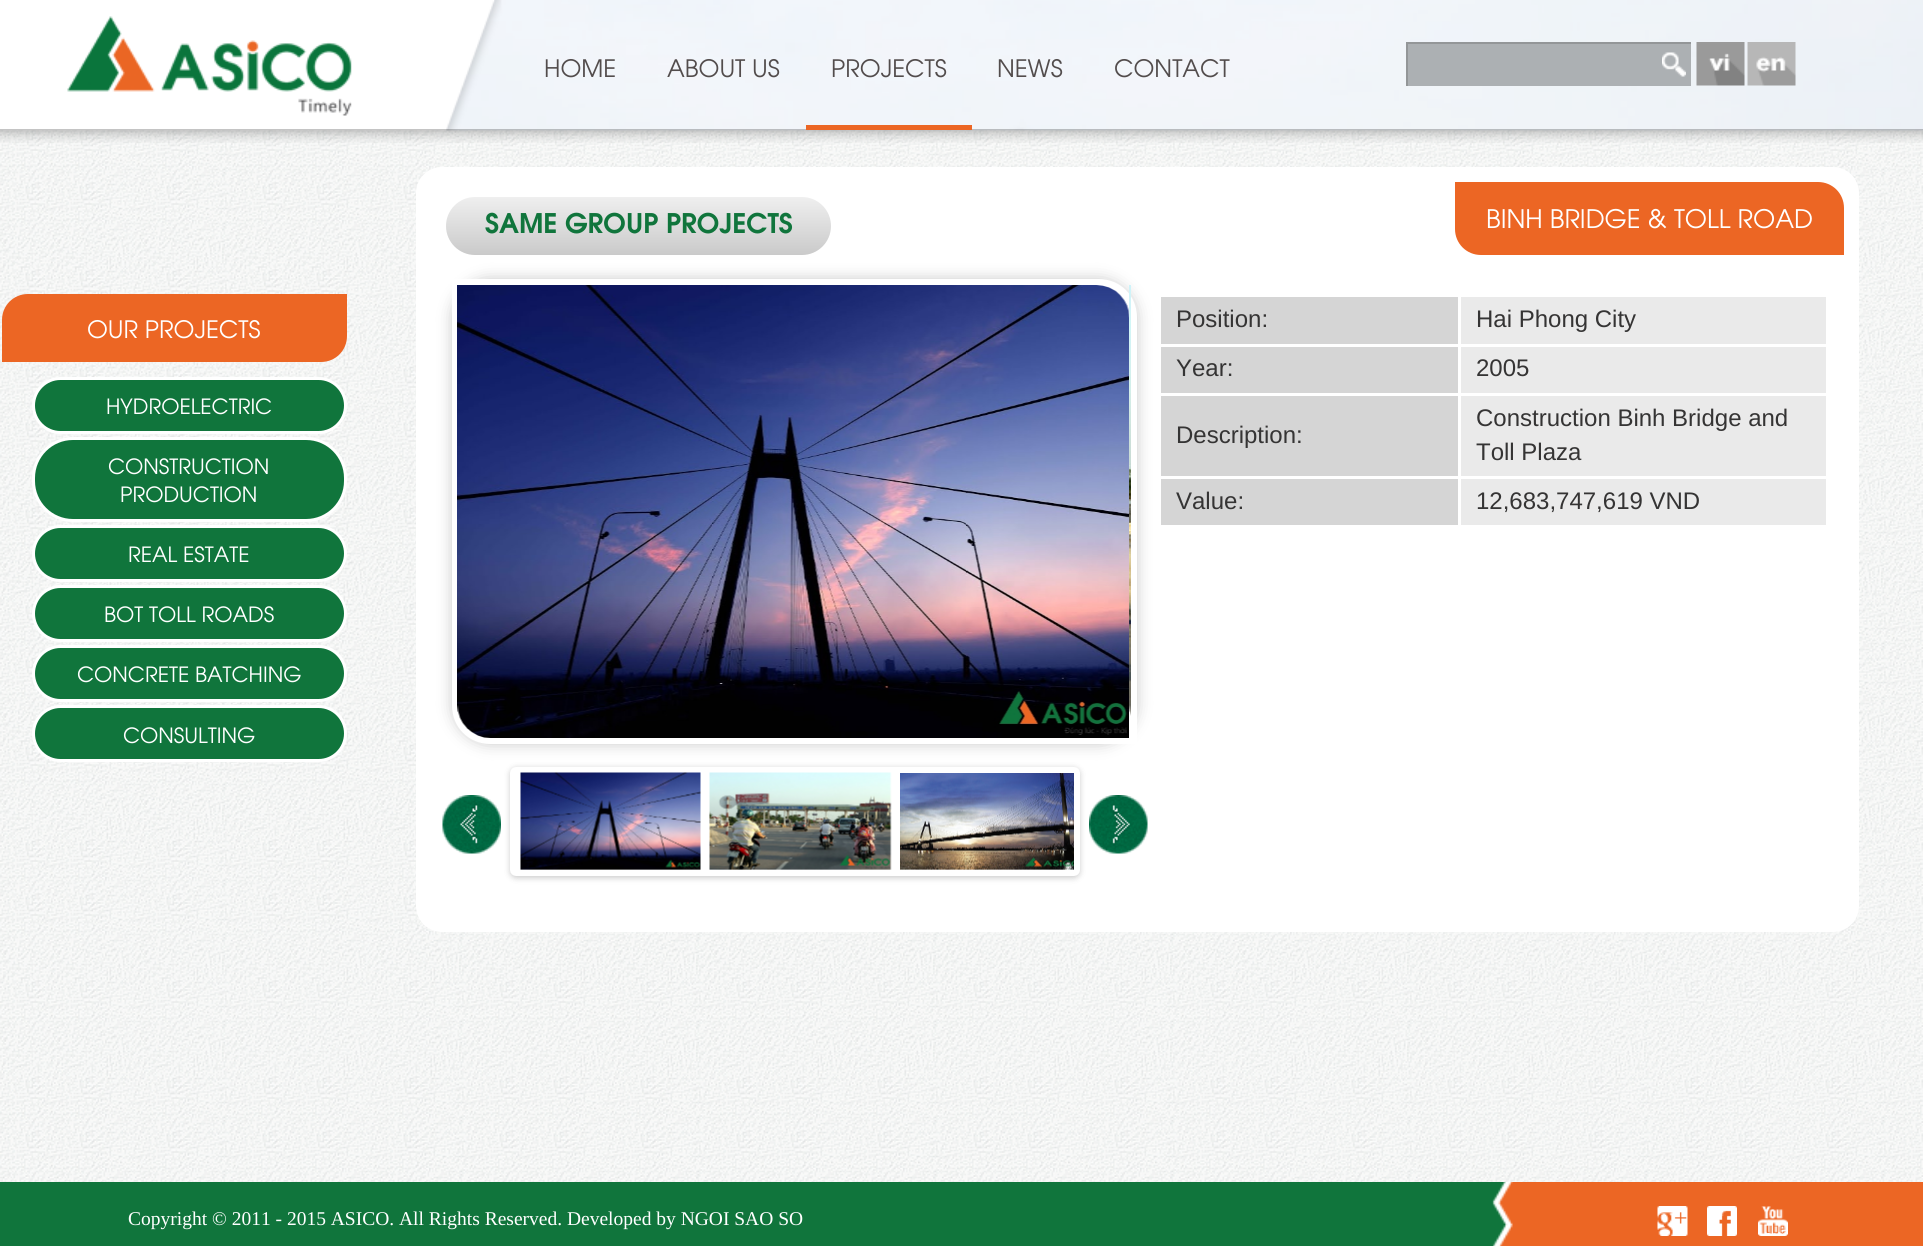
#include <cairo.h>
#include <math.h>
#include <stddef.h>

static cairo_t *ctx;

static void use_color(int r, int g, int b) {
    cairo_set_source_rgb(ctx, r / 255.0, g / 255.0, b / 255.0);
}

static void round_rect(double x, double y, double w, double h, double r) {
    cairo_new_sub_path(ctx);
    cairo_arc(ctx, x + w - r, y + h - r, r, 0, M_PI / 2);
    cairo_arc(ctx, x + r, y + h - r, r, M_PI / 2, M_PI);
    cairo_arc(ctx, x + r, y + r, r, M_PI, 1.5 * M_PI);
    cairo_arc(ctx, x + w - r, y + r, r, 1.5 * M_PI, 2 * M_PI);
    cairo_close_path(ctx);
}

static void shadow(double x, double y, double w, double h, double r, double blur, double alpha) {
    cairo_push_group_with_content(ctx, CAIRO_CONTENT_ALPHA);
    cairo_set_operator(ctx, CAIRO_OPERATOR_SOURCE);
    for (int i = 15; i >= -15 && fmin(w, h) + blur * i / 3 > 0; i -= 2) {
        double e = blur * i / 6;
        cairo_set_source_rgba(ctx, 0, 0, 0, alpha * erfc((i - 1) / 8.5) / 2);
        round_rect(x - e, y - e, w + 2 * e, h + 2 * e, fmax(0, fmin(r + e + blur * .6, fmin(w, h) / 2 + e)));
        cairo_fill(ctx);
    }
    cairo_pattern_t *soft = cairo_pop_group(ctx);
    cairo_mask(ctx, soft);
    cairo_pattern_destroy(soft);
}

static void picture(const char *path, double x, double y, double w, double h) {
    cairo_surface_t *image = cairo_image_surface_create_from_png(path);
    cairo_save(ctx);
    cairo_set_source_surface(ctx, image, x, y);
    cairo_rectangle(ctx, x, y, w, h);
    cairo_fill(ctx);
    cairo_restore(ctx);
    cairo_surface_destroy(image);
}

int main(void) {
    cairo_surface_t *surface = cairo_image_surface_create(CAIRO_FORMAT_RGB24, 1923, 1246);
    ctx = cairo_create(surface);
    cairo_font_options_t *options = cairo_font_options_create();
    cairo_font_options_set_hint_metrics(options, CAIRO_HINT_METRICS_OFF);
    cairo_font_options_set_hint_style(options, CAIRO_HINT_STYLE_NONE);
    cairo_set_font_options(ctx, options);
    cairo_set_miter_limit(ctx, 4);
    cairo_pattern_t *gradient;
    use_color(255, 255, 255);
    cairo_paint(ctx);
    picture("img1.png", 0, 130, 1923, 1052);
    picture("img2.png", 0, 0, 1923, 131);
    picture("img3.png", 67, 16, 285, 100);
    cairo_select_font_face(ctx, "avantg", CAIRO_FONT_SLANT_NORMAL, CAIRO_FONT_WEIGHT_NORMAL);
    cairo_set_font_size(ctx, 24);
    use_color(82, 76, 76);
    cairo_move_to(ctx, 544, 77);
    cairo_show_text(ctx, "HOME");
    cairo_move_to(ctx, 667, 77);
    cairo_show_text(ctx, "ABOUT US");
    picture("img7.png", 0, 129, 1923, 14);
    use_color(236, 102, 36);
    cairo_rectangle(ctx, 806, 125, 166, 5);
    cairo_fill(ctx);
    use_color(82, 76, 76);
    cairo_move_to(ctx, 831, 77);
    cairo_show_text(ctx, "PROJECTS");
    cairo_move_to(ctx, 997, 77);
    cairo_show_text(ctx, "NEWS");
    cairo_move_to(ctx, 1114, 77);
    cairo_show_text(ctx, "CONTACT");
    use_color(172, 176, 179);
    cairo_rectangle(ctx, 1408, 44, 283, 42);
    cairo_fill(ctx);
    picture("img4.png", 1662, 52, 24, 25);
    use_color(147, 150, 152);
    cairo_rectangle(ctx, 1406, 42, 285, 2);
    cairo_fill(ctx);
    cairo_rectangle(ctx, 1406, 42, 2, 44);
    cairo_fill(ctx);
    picture("img5.png", 1696, 42, 49, 44);
    picture("img6.png", 1747, 42, 49, 44);
    use_color(236, 102, 36);
    cairo_new_path(ctx);
    cairo_move_to(ctx, 28, 294);
    cairo_line_to(ctx, 347, 294);
    cairo_line_to(ctx, 347, 336);
    cairo_curve_to(ctx, 347, 350.5, 335.5, 362, 321, 362);
    cairo_line_to(ctx, 2, 362);
    cairo_line_to(ctx, 2, 320);
    cairo_curve_to(ctx, 2, 305.5, 13.5, 294, 28, 294);
    cairo_close_path(ctx);
    cairo_fill(ctx);
    use_color(255, 255, 255);
    cairo_move_to(ctx, 87, 338);
    cairo_show_text(ctx, "OUR PROJECTS");
    use_color(16, 117, 60);
    round_rect(33.5, 378.5, 312, 54, 27);
    cairo_fill_preserve(ctx);
    use_color(255, 255, 255);
    cairo_set_line_width(ctx, 3);
    cairo_stroke(ctx);
    cairo_set_font_size(ctx, 21);
    cairo_move_to(ctx, 106, 414);
    cairo_show_text(ctx, "HYDROELECTRIC");
    use_color(16, 117, 60);
    round_rect(33.5, 438.5, 312, 82, 39.5);
    cairo_fill_preserve(ctx);
    use_color(255, 255, 255);
    cairo_stroke(ctx);
    cairo_move_to(ctx, 108, 474);
    cairo_show_text(ctx, "CONSTRUCTION");
    cairo_move_to(ctx, 120, 502);
    cairo_show_text(ctx, "PRODUCTION");
    use_color(16, 117, 60);
    round_rect(33.5, 526.5, 312, 54, 27);
    cairo_fill_preserve(ctx);
    use_color(255, 255, 255);
    cairo_stroke(ctx);
    cairo_move_to(ctx, 128, 562);
    cairo_show_text(ctx, "REAL ESTATE");
    use_color(16, 117, 60);
    round_rect(33.5, 586.5, 312, 54, 27);
    cairo_fill_preserve(ctx);
    use_color(255, 255, 255);
    cairo_stroke(ctx);
    cairo_move_to(ctx, 104, 622);
    cairo_show_text(ctx, "BOT TOLL ROADS");
    use_color(16, 117, 60);
    round_rect(33.5, 646.5, 312, 54, 27);
    cairo_fill_preserve(ctx);
    use_color(255, 255, 255);
    cairo_stroke(ctx);
    cairo_move_to(ctx, 77, 682);
    cairo_show_text(ctx, "CONCRETE BATCHING");
    use_color(16, 117, 60);
    round_rect(33.5, 706.5, 312, 54, 27);
    cairo_fill_preserve(ctx);
    use_color(255, 255, 255);
    cairo_stroke(ctx);
    cairo_move_to(ctx, 123, 743);
    cairo_show_text(ctx, "CONSULTING");
    round_rect(416, 167, 1443, 765, 26);
    cairo_fill(ctx);
    gradient = cairo_pattern_create_linear(638, 197, 638, 255);
    cairo_pattern_add_color_stop_rgba(gradient, 0, 0.937, 0.937, 0.937, 1);
    cairo_pattern_add_color_stop_rgba(gradient, 1, 0.792, 0.792, 0.792, 1);
    cairo_set_source(ctx, gradient);
    cairo_pattern_destroy(gradient);
    round_rect(446, 197, 385, 58, 29);
    cairo_fill(ctx);
    cairo_select_font_face(ctx, "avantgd", CAIRO_FONT_SLANT_NORMAL, CAIRO_FONT_WEIGHT_NORMAL);
    cairo_set_font_size(ctx, 27);
    use_color(16, 117, 60);
    cairo_move_to(ctx, 485, 233);
    cairo_show_text(ctx, "SAME GROUP PROJECTS");
    use_color(236, 102, 36);
    cairo_new_path(ctx);
    cairo_move_to(ctx, 1455, 182);
    cairo_line_to(ctx, 1818, 182);
    cairo_curve_to(ctx, 1832.5, 182, 1844, 193.5, 1844, 208);
    cairo_line_to(ctx, 1844, 255);
    cairo_line_to(ctx, 1481, 255);
    cairo_curve_to(ctx, 1466.5, 255, 1455, 243.5, 1455, 229);
    cairo_close_path(ctx);
    cairo_fill(ctx);
    cairo_select_font_face(ctx, "avantg", CAIRO_FONT_SLANT_NORMAL, CAIRO_FONT_WEIGHT_NORMAL);
    cairo_set_font_size(ctx, 25.5);
    use_color(255, 255, 255);
    cairo_move_to(ctx, 1486, 228);
    cairo_show_text(ctx, "BINH BRIDGE & TOLL ROAD");
    use_color(202, 202, 202);
    shadow(452, 279, 685, 465, 38, 7.5, 1);
    use_color(255, 255, 255);
    cairo_new_path(ctx);
    cairo_move_to(ctx, 455, 282);
    cairo_line_to(ctx, 1099, 282);
    cairo_curve_to(ctx, 1118.5, 282, 1134, 297.5, 1134, 317);
    cairo_line_to(ctx, 1134, 741);
    cairo_line_to(ctx, 490, 741);
    cairo_curve_to(ctx, 470.5, 741, 455, 725.5, 455, 706);
    cairo_close_path(ctx);
    cairo_fill_preserve(ctx);
    cairo_set_line_width(ctx, 6);
    cairo_stroke(ctx);
    picture("img8.png", 457, 285, 672, 453);
    picture("img9.png", 1129, 285, 2, 431);
    use_color(0, 0, 0);
    shadow(510, 768, 570, 110, 6, 3, 0.2);
    use_color(255, 255, 255);
    round_rect(513, 770, 564, 103, 3);
    cairo_fill_preserve(ctx);
    cairo_stroke(ctx);
    picture("img10.png", 520, 772, 181, 98);
    picture("img11.png", 709, 772, 183, 98);
    picture("img12.png", 900, 773, 174, 97);
    picture("img13.png", 442, 795, 59, 59);
    picture("img14.png", 1089, 795, 59, 59);
    use_color(213, 213, 213);
    cairo_rectangle(ctx, 1161, 297, 297, 47);
    cairo_fill(ctx);
    cairo_select_font_face(ctx, "Liberation Sans", CAIRO_FONT_SLANT_NORMAL, CAIRO_FONT_WEIGHT_NORMAL);
    cairo_set_font_size(ctx, 24);
    use_color(53, 52, 52);
    cairo_move_to(ctx, 1176, 327);
    cairo_show_text(ctx, "Position:");
    use_color(234, 234, 234);
    cairo_rectangle(ctx, 1461, 297, 365, 47);
    cairo_fill(ctx);
    use_color(53, 52, 52);
    cairo_move_to(ctx, 1476, 327);
    cairo_show_text(ctx, "Hai Phong City");
    use_color(213, 213, 213);
    cairo_rectangle(ctx, 1161, 347, 297, 46);
    cairo_fill(ctx);
    use_color(53, 52, 52);
    cairo_move_to(ctx, 1176, 376);
    cairo_show_text(ctx, "Year:");
    use_color(234, 234, 234);
    cairo_rectangle(ctx, 1461, 347, 365, 46);
    cairo_fill(ctx);
    use_color(53, 52, 52);
    cairo_move_to(ctx, 1476, 376);
    cairo_show_text(ctx, "2005");
    use_color(213, 213, 213);
    cairo_rectangle(ctx, 1161, 396, 297, 80);
    cairo_fill(ctx);
    use_color(53, 52, 52);
    cairo_move_to(ctx, 1176, 443);
    cairo_show_text(ctx, "Description:");
    use_color(234, 234, 234);
    cairo_rectangle(ctx, 1461, 396, 365, 80);
    cairo_fill(ctx);
    use_color(53, 52, 52);
    cairo_move_to(ctx, 1476, 426);
    cairo_show_text(ctx, "Construction Binh Bridge and");
    cairo_move_to(ctx, 1476, 460);
    cairo_show_text(ctx, "Toll Plaza");
    use_color(213, 213, 213);
    cairo_rectangle(ctx, 1161, 479, 297, 46);
    cairo_fill(ctx);
    use_color(53, 52, 52);
    cairo_move_to(ctx, 1176, 509);
    cairo_show_text(ctx, "Value:");
    use_color(234, 234, 234);
    cairo_rectangle(ctx, 1461, 479, 365, 46);
    cairo_fill(ctx);
    use_color(53, 52, 52);
    cairo_move_to(ctx, 1476, 509);
    cairo_show_text(ctx, "12,683,747,619 VND");
    picture("img15.png", 0, 1182, 1923, 64);
    cairo_select_font_face(ctx, "Liberation Serif", CAIRO_FONT_SLANT_NORMAL, CAIRO_FONT_WEIGHT_NORMAL);
    cairo_set_font_size(ctx, 19.5);
    use_color(255, 255, 255);
    cairo_move_to(ctx, 128, 1225);
    cairo_show_text(ctx, "Copyright © 2011 - 2015 ASICO. All Rights Reserved. Developed by NGOI SAO SO");
    picture("img16.png", 1657, 1206, 31, 30);
    picture("img17.png", 1707, 1206, 30, 30);
    picture("img18.png", 1758, 1206, 30, 30);
    cairo_surface_write_to_png(surface, "result.png");
    cairo_font_options_destroy(options);
    cairo_destroy(ctx);
    cairo_surface_destroy(surface);
    return 0;
}
